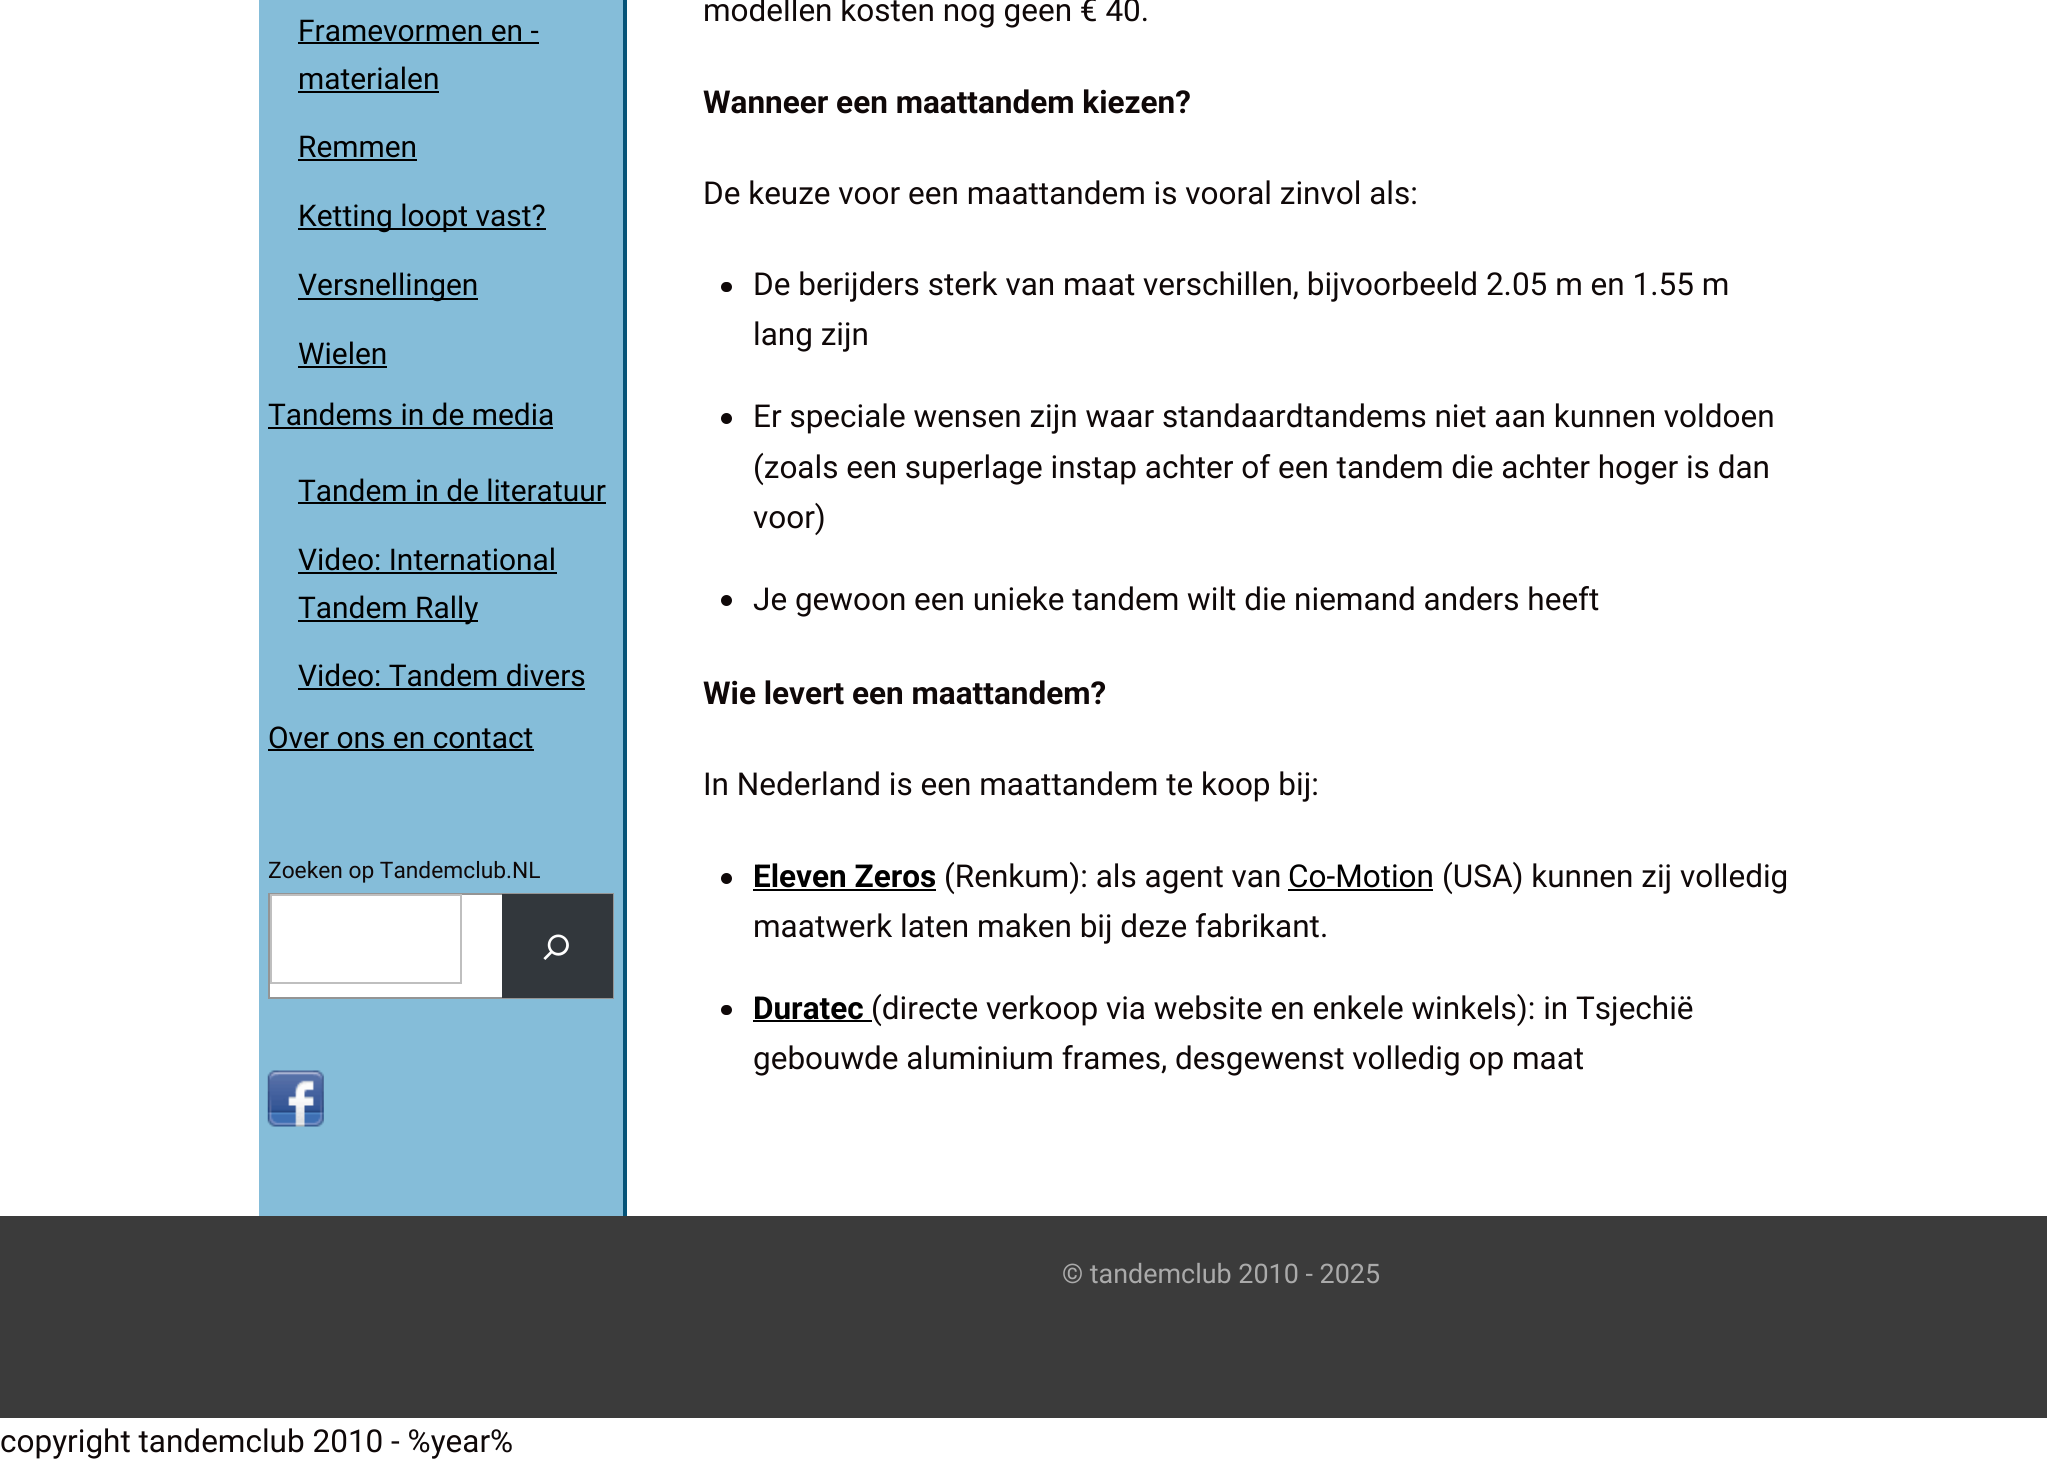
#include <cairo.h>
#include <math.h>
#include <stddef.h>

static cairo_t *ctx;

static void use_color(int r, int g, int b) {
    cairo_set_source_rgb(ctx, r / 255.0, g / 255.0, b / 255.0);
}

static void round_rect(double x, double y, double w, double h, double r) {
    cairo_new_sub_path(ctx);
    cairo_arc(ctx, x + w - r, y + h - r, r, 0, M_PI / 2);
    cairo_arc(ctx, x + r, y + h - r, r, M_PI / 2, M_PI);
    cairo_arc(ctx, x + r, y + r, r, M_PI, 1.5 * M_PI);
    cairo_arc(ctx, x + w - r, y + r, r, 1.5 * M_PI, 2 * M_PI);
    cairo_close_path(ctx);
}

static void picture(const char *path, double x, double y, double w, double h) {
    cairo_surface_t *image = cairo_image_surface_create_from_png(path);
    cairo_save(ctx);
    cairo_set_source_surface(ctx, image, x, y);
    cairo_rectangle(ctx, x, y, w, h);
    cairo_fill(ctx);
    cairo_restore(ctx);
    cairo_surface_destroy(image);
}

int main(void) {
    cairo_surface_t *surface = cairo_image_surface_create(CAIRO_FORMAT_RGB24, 2047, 1465);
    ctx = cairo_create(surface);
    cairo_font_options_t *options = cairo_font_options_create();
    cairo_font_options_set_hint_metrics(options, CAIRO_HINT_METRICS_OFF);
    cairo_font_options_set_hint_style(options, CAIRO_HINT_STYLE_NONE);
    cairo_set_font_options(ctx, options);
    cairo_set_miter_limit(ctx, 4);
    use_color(255, 255, 255);
    cairo_paint(ctx);
    use_color(133, 189, 217);
    cairo_rectangle(ctx, 259, 0, 364, 1216);
    cairo_fill(ctx);
    use_color(5, 83, 120);
    cairo_rectangle(ctx, 623, 0, 4, 1216);
    cairo_fill(ctx);
    cairo_select_font_face(ctx, "Roboto", CAIRO_FONT_SLANT_NORMAL, CAIRO_FONT_WEIGHT_NORMAL);
    cairo_set_font_size(ctx, 29.9);
    use_color(0, 0, 0);
    cairo_move_to(ctx, 298, 41);
    cairo_show_text(ctx, "Framevormen en -");
    cairo_rectangle(ctx, 298, 42, 241, 2);
    cairo_fill(ctx);
    cairo_move_to(ctx, 298, 89);
    cairo_show_text(ctx, "materialen");
    cairo_rectangle(ctx, 298, 91, 141, 2);
    cairo_fill(ctx);
    cairo_move_to(ctx, 298, 157);
    cairo_show_text(ctx, "Remmen");
    cairo_rectangle(ctx, 298, 159, 119, 2);
    cairo_fill(ctx);
    cairo_rectangle(ctx, 298, 228, 248, 2);
    cairo_fill(ctx);
    cairo_move_to(ctx, 298, 226);
    cairo_show_text(ctx, "Ketting loopt vast?");
    cairo_rectangle(ctx, 298, 298, 180, 2);
    cairo_fill(ctx);
    cairo_move_to(ctx, 298, 295);
    cairo_show_text(ctx, "Versnellingen");
    cairo_move_to(ctx, 298, 364);
    cairo_show_text(ctx, "Wielen");
    cairo_rectangle(ctx, 298, 366, 89, 2);
    cairo_fill(ctx);
    cairo_move_to(ctx, 268, 425);
    cairo_show_text(ctx, "Tandems in de media");
    cairo_rectangle(ctx, 268, 427, 285, 2);
    cairo_fill(ctx);
    cairo_move_to(ctx, 298, 501);
    cairo_show_text(ctx, "Tandem in de literatuur");
    cairo_rectangle(ctx, 298, 502, 308, 2);
    cairo_fill(ctx);
    cairo_move_to(ctx, 298, 570);
    cairo_show_text(ctx, "Video: International");
    cairo_rectangle(ctx, 298, 572, 259, 2);
    cairo_fill(ctx);
    cairo_rectangle(ctx, 298, 620, 180, 2);
    cairo_fill(ctx);
    cairo_move_to(ctx, 298, 618);
    cairo_show_text(ctx, "Tandem Rally");
    cairo_move_to(ctx, 298, 686);
    cairo_show_text(ctx, "Video: Tandem divers");
    cairo_rectangle(ctx, 298, 688, 287, 2);
    cairo_fill(ctx);
    cairo_move_to(ctx, 268, 748);
    cairo_show_text(ctx, "Over ons en contact");
    cairo_rectangle(ctx, 268, 749, 266, 2);
    cairo_fill(ctx);
    cairo_set_font_size(ctx, 22.75);
    use_color(15, 8, 8);
    cairo_move_to(ctx, 268, 878);
    cairo_show_text(ctx, "Zoeken op Tandemclub.NL");
    use_color(255, 255, 255);
    cairo_rectangle(ctx, 270, 895, 232, 102);
    cairo_fill(ctx);
    cairo_rectangle(ctx, 269, 894, 344, 104);
    use_color(148, 148, 148);
    cairo_stroke(ctx);
    cairo_rectangle(ctx, 271, 895, 190, 88);
    use_color(191, 191, 191);
    cairo_stroke(ctx);
    use_color(50, 55, 60);
    cairo_rectangle(ctx, 502, 894, 111, 104);
    cairo_fill(ctx);
    picture("img1.png", 543, 934, 26, 26);
    picture("img2.png", 267, 1070, 57, 57);
    cairo_set_font_size(ctx, 31.5);
    use_color(15, 8, 8);
    cairo_move_to(ctx, 703, 21);
    cairo_show_text(ctx, "modellen kosten nog geen € 40.");
    cairo_select_font_face(ctx, "Roboto", CAIRO_FONT_SLANT_NORMAL, CAIRO_FONT_WEIGHT_BOLD);
    cairo_move_to(ctx, 703, 113);
    cairo_show_text(ctx, "Wanneer een maattandem kiezen?");
    cairo_select_font_face(ctx, "Roboto", CAIRO_FONT_SLANT_NORMAL, CAIRO_FONT_WEIGHT_NORMAL);
    cairo_move_to(ctx, 703, 204);
    cairo_show_text(ctx, "De keuze voor een maattandem is vooral zinvol als:");
    round_rect(721, 282, 11, 10, 5);
    cairo_fill(ctx);
    cairo_move_to(ctx, 753, 295);
    cairo_show_text(ctx, "De berijders sterk van maat verschillen, bijvoorbeeld 2.05 m en 1.55 m");
    cairo_move_to(ctx, 753, 345);
    cairo_show_text(ctx, "lang zijn");
    cairo_new_path(ctx);
    cairo_arc(ctx, 726.5, 418.5, 5.5, 0, 2 * M_PI);
    cairo_fill(ctx);
    cairo_move_to(ctx, 753, 427);
    cairo_show_text(ctx, "Er speciale wensen zijn waar standaardtandems niet aan kunnen voldoen");
    cairo_move_to(ctx, 753, 478);
    cairo_show_text(ctx, "(zoals een superlage instap achter of een tandem die achter hoger is dan");
    cairo_move_to(ctx, 753, 528);
    cairo_show_text(ctx, "voor)");
    cairo_new_path(ctx);
    cairo_arc(ctx, 726.5, 600.5, 5.5, 0, 2 * M_PI);
    cairo_fill(ctx);
    cairo_move_to(ctx, 753, 610);
    cairo_show_text(ctx, "Je gewoon een unieke tandem wilt die niemand anders heeft");
    cairo_select_font_face(ctx, "Roboto", CAIRO_FONT_SLANT_NORMAL, CAIRO_FONT_WEIGHT_BOLD);
    cairo_move_to(ctx, 703, 704);
    cairo_show_text(ctx, "Wie levert een maattandem?");
    cairo_select_font_face(ctx, "Roboto", CAIRO_FONT_SLANT_NORMAL, CAIRO_FONT_WEIGHT_NORMAL);
    cairo_move_to(ctx, 703, 795);
    cairo_show_text(ctx, "In Nederland is een maattandem te koop bij:");
    cairo_new_path(ctx);
    cairo_arc(ctx, 726.5, 878.5, 5.5, 0, 2 * M_PI);
    cairo_fill(ctx);
    cairo_select_font_face(ctx, "Roboto", CAIRO_FONT_SLANT_NORMAL, CAIRO_FONT_WEIGHT_BOLD);
    use_color(0, 0, 0);
    cairo_move_to(ctx, 753, 887);
    cairo_show_text(ctx, "Eleven Zeros");
    cairo_rectangle(ctx, 753, 889, 183, 2);
    cairo_fill(ctx);
    cairo_select_font_face(ctx, "Roboto", CAIRO_FONT_SLANT_NORMAL, CAIRO_FONT_WEIGHT_NORMAL);
    use_color(15, 8, 8);
    cairo_move_to(ctx, 944, 887);
    cairo_show_text(ctx, "(Renkum): als agent van");
    use_color(0, 0, 0);
    cairo_move_to(ctx, 1288, 887);
    cairo_show_text(ctx, "Co-Motion");
    cairo_rectangle(ctx, 1288, 889, 145, 2);
    cairo_fill(ctx);
    use_color(15, 8, 8);
    cairo_move_to(ctx, 1442, 887);
    cairo_show_text(ctx, "(USA) kunnen zij volledig");
    cairo_move_to(ctx, 753, 937);
    cairo_show_text(ctx, "maatwerk laten maken bij deze fabrikant.");
    round_rect(721, 1005, 11, 10, 5);
    cairo_fill(ctx);
    cairo_select_font_face(ctx, "Roboto", CAIRO_FONT_SLANT_NORMAL, CAIRO_FONT_WEIGHT_BOLD);
    use_color(0, 0, 0);
    cairo_move_to(ctx, 753, 1019);
    cairo_show_text(ctx, "Duratec");
    cairo_rectangle(ctx, 753, 1020, 119, 2);
    cairo_fill(ctx);
    cairo_select_font_face(ctx, "Roboto", CAIRO_FONT_SLANT_NORMAL, CAIRO_FONT_WEIGHT_NORMAL);
    use_color(15, 8, 8);
    cairo_move_to(ctx, 871, 1019);
    cairo_show_text(ctx, "(directe verkoop via website en enkele winkels): in Tsjechië");
    cairo_move_to(ctx, 753, 1069);
    cairo_show_text(ctx, "gebouwde aluminium frames, desgewenst volledig op maat");
    use_color(59, 59, 59);
    cairo_rectangle(ctx, 0, 1216, 2047, 202);
    cairo_fill(ctx);
    cairo_set_font_size(ctx, 26.9);
    use_color(170, 170, 170);
    cairo_move_to(ctx, 1062, 1283);
    cairo_show_text(ctx, "© tandemclub 2010 - 2025");
    cairo_set_font_size(ctx, 31.5);
    use_color(15, 8, 8);
    cairo_move_to(ctx, 0, 1452);
    cairo_show_text(ctx, "copyright tandemclub 2010 - %year%");
    cairo_surface_write_to_png(surface, "result.png");
    cairo_font_options_destroy(options);
    cairo_destroy(ctx);
    cairo_surface_destroy(surface);
    return 0;
}
